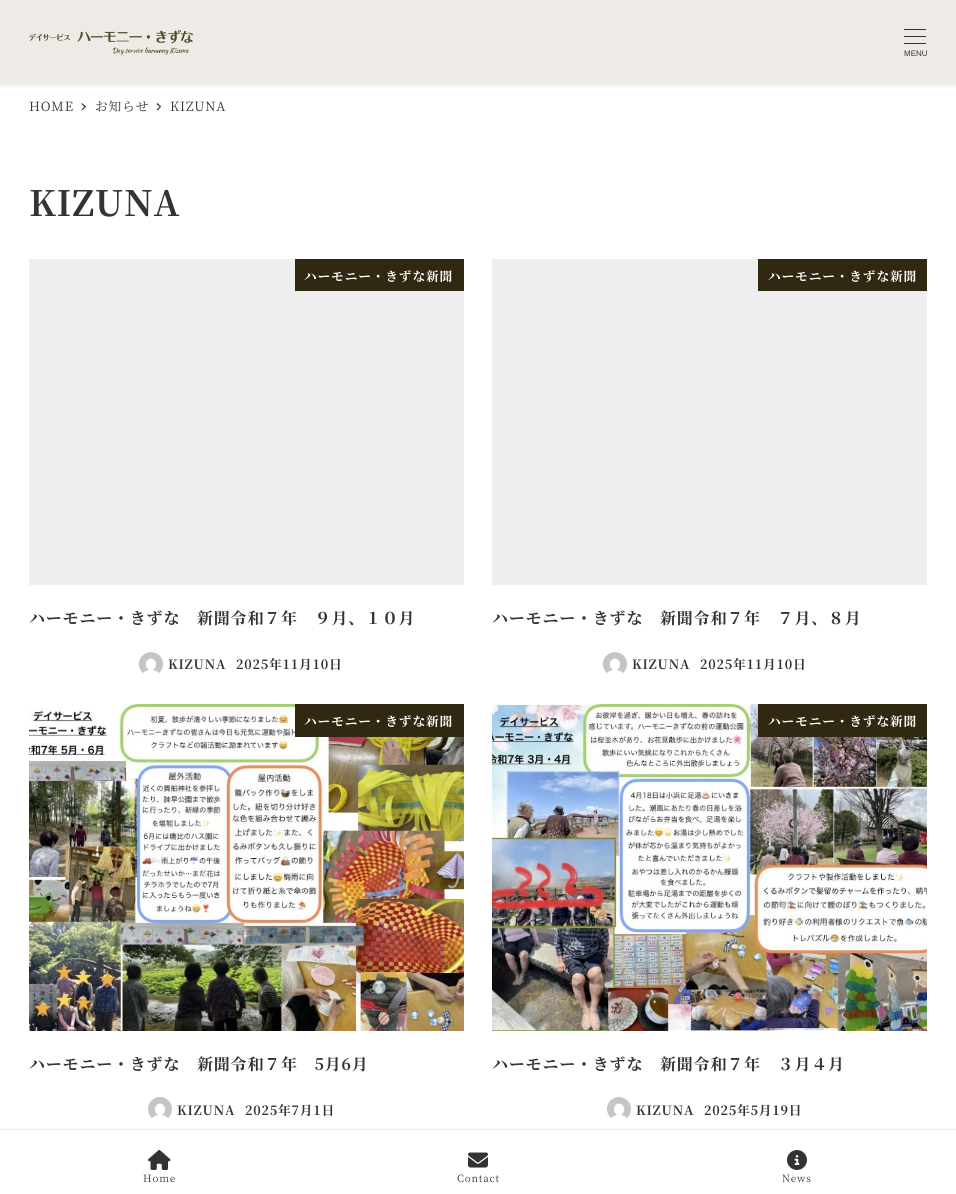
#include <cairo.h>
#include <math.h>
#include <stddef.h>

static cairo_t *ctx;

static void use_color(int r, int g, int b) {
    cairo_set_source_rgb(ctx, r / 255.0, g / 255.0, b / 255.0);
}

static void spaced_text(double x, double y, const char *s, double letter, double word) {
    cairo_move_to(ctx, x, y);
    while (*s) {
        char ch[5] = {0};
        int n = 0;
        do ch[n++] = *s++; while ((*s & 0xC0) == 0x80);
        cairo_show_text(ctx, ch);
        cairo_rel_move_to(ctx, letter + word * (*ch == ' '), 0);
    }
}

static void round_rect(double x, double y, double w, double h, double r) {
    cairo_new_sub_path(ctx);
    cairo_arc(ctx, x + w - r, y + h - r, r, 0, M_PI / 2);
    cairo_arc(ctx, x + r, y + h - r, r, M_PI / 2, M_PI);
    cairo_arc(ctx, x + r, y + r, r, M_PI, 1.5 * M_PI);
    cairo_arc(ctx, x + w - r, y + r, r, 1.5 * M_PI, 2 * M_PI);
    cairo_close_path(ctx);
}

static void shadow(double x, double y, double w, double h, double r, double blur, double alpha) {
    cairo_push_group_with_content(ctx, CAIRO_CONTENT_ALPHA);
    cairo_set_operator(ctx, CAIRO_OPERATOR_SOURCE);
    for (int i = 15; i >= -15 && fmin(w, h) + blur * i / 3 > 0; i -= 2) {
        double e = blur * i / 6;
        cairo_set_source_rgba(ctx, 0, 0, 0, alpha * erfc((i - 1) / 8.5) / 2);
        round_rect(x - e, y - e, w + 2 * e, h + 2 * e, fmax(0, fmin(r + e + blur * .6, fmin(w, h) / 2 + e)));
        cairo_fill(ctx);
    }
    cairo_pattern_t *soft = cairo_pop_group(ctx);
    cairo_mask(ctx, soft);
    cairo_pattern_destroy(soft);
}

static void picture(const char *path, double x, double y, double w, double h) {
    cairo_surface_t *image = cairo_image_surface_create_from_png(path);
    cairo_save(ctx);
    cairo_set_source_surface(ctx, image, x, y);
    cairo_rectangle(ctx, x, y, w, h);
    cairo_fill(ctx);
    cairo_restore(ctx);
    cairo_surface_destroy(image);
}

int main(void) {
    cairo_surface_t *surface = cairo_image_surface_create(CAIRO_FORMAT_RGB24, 956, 1194);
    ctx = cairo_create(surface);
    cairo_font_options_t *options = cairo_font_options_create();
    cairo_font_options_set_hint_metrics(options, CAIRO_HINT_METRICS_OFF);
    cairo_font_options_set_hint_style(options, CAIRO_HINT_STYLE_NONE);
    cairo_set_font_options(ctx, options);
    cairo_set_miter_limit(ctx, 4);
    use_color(255, 255, 255);
    cairo_paint(ctx);
    use_color(0, 0, 0);
    shadow(-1, 0, 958, 87, 0, 1, 0.05);
    use_color(238, 234, 229);
    cairo_rectangle(ctx, 0, 0, 956, 85);
    cairo_fill(ctx);
    picture("img1.png", 28, 29, 165, 26);
    use_color(51, 51, 51);
    cairo_rectangle(ctx, 904, 29, 22, 1);
    cairo_fill(ctx);
    cairo_rectangle(ctx, 904, 36, 22, 1);
    cairo_fill(ctx);
    cairo_rectangle(ctx, 904, 43, 22, 1);
    cairo_fill(ctx);
    cairo_select_font_face(ctx, "Liberation Sans", CAIRO_FONT_SLANT_NORMAL, CAIRO_FONT_WEIGHT_NORMAL);
    cairo_set_font_size(ctx, 8);
    cairo_move_to(ctx, 904, 56);
    cairo_show_text(ctx, "MENU");
    cairo_select_font_face(ctx, "Noto Serif JP", CAIRO_FONT_SLANT_NORMAL, CAIRO_FONT_WEIGHT_NORMAL);
    cairo_set_font_size(ctx, 12.75);
    spaced_text(29, 111, "HOME", 0.8, 0);
    cairo_new_path(ctx);
    cairo_move_to(ctx, 82, 103);
    cairo_line_to(ctx, 86, 106.5);
    cairo_line_to(ctx, 85, 107.5);
    cairo_line_to(ctx, 81.5, 104);
    cairo_close_path(ctx);
    cairo_fill(ctx);
    cairo_new_path(ctx);
    cairo_move_to(ctx, 85, 106);
    cairo_line_to(ctx, 86, 106.5);
    cairo_line_to(ctx, 82, 110.5);
    cairo_line_to(ctx, 81.5, 109.5);
    cairo_close_path(ctx);
    cairo_fill(ctx);
    spaced_text(95, 111, "お知らせ", 0.8, 0);
    cairo_new_path(ctx);
    cairo_move_to(ctx, 157.5, 103);
    cairo_line_to(ctx, 161, 106.5);
    cairo_line_to(ctx, 160.5, 107.5);
    cairo_line_to(ctx, 156.5, 104);
    cairo_close_path(ctx);
    cairo_fill(ctx);
    cairo_new_path(ctx);
    cairo_move_to(ctx, 160.5, 106);
    cairo_line_to(ctx, 161, 106.5);
    cairo_line_to(ctx, 157.5, 110.5);
    cairo_line_to(ctx, 156.5, 109.5);
    cairo_close_path(ctx);
    cairo_fill(ctx);
    spaced_text(170, 111, "KIZUNA", 0.8, 0);
    cairo_select_font_face(ctx, "Noto Serif JP", CAIRO_FONT_SLANT_NORMAL, CAIRO_FONT_WEIGHT_BOLD);
    cairo_set_font_size(ctx, 35);
    spaced_text(29, 216, "KIZUNA", 0.8, 0);
    use_color(238, 238, 238);
    cairo_rectangle(ctx, 29, 259, 435, 326);
    cairo_fill(ctx);
    use_color(48, 40, 16);
    cairo_rectangle(ctx, 295, 259, 169, 32);
    cairo_fill(ctx);
    cairo_set_font_size(ctx, 12.75);
    use_color(255, 255, 255);
    spaced_text(304, 281, "ハーモニー・きずな新聞", 0.8, 0);
    cairo_set_font_size(ctx, 16);
    use_color(51, 51, 51);
    spaced_text(29, 624, "ハーモニー・きずな　新聞令和７年　９月、１ 月", 0.8, 0);
    cairo_select_font_face(ctx, "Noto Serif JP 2", CAIRO_FONT_SLANT_NORMAL, CAIRO_FONT_WEIGHT_BOLD);
    spaced_text(382, 624, "０", 0.8, 0);
    picture("img2.png", 139, 652, 24, 21);
    cairo_select_font_face(ctx, "Noto Serif JP", CAIRO_FONT_SLANT_NORMAL, CAIRO_FONT_WEIGHT_BOLD);
    cairo_set_font_size(ctx, 12.75);
    spaced_text(168, 669, "KIZUNA", 0.8, 0);
    spaced_text(236, 669, "2025年11月10日", 0.8, 0);
    use_color(238, 238, 238);
    cairo_rectangle(ctx, 492, 259, 435, 326);
    cairo_fill(ctx);
    use_color(48, 40, 16);
    cairo_rectangle(ctx, 758, 259, 169, 32);
    cairo_fill(ctx);
    use_color(255, 255, 255);
    spaced_text(768, 281, "ハーモニー・きずな新聞", 0.8, 0);
    cairo_set_font_size(ctx, 16);
    use_color(51, 51, 51);
    spaced_text(492, 624, "ハーモニー・きずな　新聞令和７年　７月、８月", 0.8, 0);
    picture("img2.png", 603, 652, 24, 21);
    cairo_set_font_size(ctx, 12.75);
    spaced_text(632, 669, "KIZUNA", 0.8, 0);
    spaced_text(700, 669, "2025年11月10日", 0.8, 0);
    picture("img3.png", 29, 704, 435, 327);
    use_color(48, 40, 16);
    cairo_rectangle(ctx, 295, 704, 169, 33);
    cairo_fill(ctx);
    use_color(255, 255, 255);
    spaced_text(304, 726, "ハーモニー・きずな新聞", 0.8, 0);
    cairo_set_font_size(ctx, 16);
    use_color(51, 51, 51);
    spaced_text(29, 1070, "ハーモニー・きずな　新聞令和７年　5月6月", 0.8, 0);
    picture("img4.png", 148, 1097, 24, 21);
    cairo_set_font_size(ctx, 12.75);
    spaced_text(177, 1115, "KIZUNA", 0.8, 0);
    spaced_text(245, 1115, "2025年7月1日", 0.8, 0);
    picture("img5.png", 492, 704, 435, 327);
    use_color(48, 40, 16);
    cairo_rectangle(ctx, 758, 704, 169, 33);
    cairo_fill(ctx);
    use_color(255, 255, 255);
    spaced_text(768, 726, "ハーモニー・きずな新聞", 0.8, 0);
    cairo_set_font_size(ctx, 16);
    use_color(51, 51, 51);
    spaced_text(492, 1070, "ハーモニー・きずな　新聞令和７年　３月４月", 0.8, 0);
    picture("img2.png", 607, 1097, 24, 21);
    cairo_set_font_size(ctx, 12.75);
    spaced_text(636, 1115, "KIZUNA", 0.8, 0);
    spaced_text(704, 1115, "2025年5月19日", 0.8, 0);
    use_color(0, 0, 0);
    shadow(0, 1130, 956, 64, 0, 1, 0.25);
    use_color(255, 255, 255);
    cairo_rectangle(ctx, 0, 1130, 956, 64);
    cairo_fill(ctx);
    picture("img6.png", 148, 1150, 23, 20);
    cairo_select_font_face(ctx, "Noto Serif JP", CAIRO_FONT_SLANT_NORMAL, CAIRO_FONT_WEIGHT_NORMAL);
    cairo_set_font_size(ctx, 10);
    use_color(51, 51, 51);
    spaced_text(143, 1182, "Home", 0.8, 0);
    picture("img7.png", 468, 1152, 20, 16);
    spaced_text(457, 1182, "Contact", 0.8, 0);
    picture("img8.png", 787, 1150, 20, 20);
    spaced_text(782, 1182, "News", 0.8, 0);
    cairo_surface_write_to_png(surface, "result.png");
    cairo_font_options_destroy(options);
    cairo_destroy(ctx);
    cairo_surface_destroy(surface);
    return 0;
}
